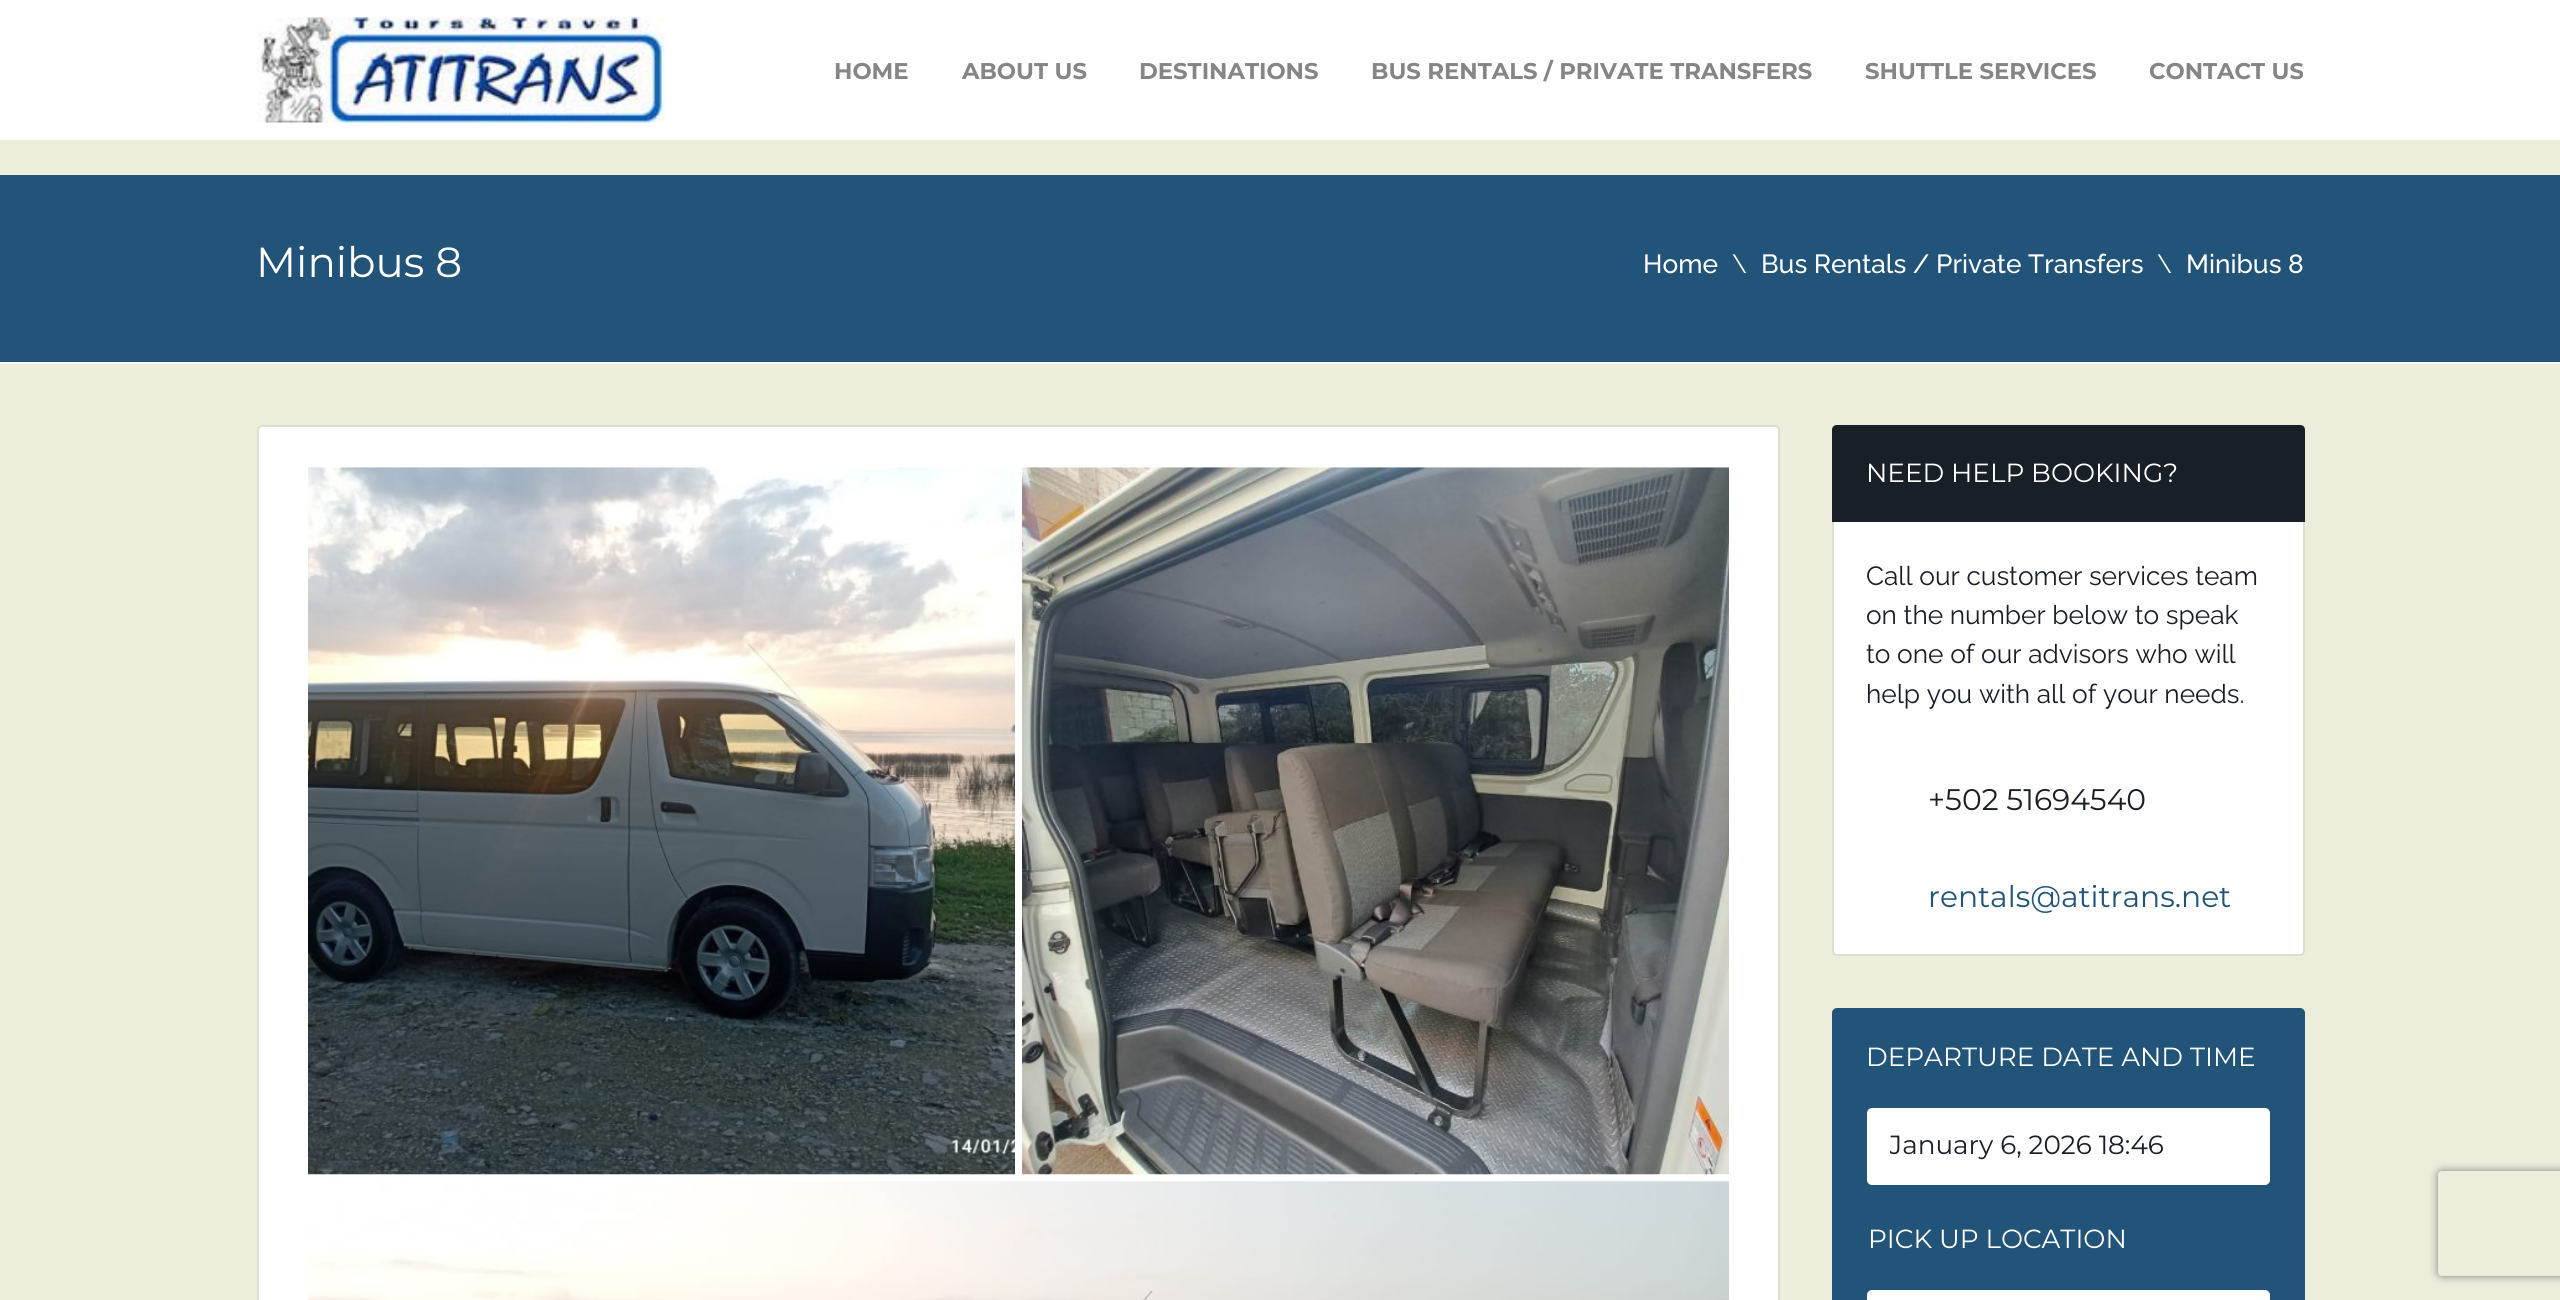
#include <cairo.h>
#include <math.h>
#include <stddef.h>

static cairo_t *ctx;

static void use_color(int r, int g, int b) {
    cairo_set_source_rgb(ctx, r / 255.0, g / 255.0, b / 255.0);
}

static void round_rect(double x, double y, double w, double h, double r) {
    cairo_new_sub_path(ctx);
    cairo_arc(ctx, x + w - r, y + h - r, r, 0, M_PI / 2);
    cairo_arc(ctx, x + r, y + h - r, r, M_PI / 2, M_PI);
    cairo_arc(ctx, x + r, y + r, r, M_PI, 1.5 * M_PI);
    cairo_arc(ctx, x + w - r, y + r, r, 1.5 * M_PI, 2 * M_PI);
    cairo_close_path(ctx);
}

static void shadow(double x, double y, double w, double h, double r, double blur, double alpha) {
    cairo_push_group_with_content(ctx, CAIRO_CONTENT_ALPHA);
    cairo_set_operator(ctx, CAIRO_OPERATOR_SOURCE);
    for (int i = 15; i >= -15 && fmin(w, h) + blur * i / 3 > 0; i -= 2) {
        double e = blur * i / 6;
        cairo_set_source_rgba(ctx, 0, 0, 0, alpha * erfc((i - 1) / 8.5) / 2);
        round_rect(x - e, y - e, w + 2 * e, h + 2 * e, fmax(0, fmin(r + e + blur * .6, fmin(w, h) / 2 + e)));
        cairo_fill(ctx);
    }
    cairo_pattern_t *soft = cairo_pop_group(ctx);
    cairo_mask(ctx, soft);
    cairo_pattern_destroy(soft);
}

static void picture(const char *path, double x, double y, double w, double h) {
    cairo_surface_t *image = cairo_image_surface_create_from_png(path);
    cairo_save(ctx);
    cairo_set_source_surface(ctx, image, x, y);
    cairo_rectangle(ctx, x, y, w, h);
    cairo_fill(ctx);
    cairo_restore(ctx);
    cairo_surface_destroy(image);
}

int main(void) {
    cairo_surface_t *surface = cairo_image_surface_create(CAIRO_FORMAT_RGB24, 2560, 1300);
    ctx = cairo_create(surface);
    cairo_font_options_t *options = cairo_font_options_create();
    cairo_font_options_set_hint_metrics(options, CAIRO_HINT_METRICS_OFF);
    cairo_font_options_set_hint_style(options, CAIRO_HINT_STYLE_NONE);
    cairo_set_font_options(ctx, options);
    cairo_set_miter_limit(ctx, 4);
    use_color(237, 237, 220);
    cairo_paint(ctx);
    use_color(255, 255, 255);
    cairo_rectangle(ctx, 0, 0, 2560, 140);
    cairo_fill(ctx);
    picture("img1.png", 257, 17, 408, 106);
    cairo_select_font_face(ctx, "Montserrat", CAIRO_FONT_SLANT_NORMAL, CAIRO_FONT_WEIGHT_BOLD);
    cairo_set_font_size(ctx, 22.75);
    use_color(133, 133, 133);
    cairo_move_to(ctx, 834, 79);
    cairo_show_text(ctx, "HOME");
    cairo_move_to(ctx, 962, 79);
    cairo_show_text(ctx, "ABOUT US");
    cairo_move_to(ctx, 1139, 79);
    cairo_show_text(ctx, "DESTINATIONS");
    cairo_move_to(ctx, 1371, 79);
    cairo_show_text(ctx, "BUS RENTALS / PRIVATE TRANSFERS");
    cairo_move_to(ctx, 1865, 79);
    cairo_show_text(ctx, "SHUTTLE SERVICES");
    cairo_move_to(ctx, 2149, 79);
    cairo_show_text(ctx, "CONTACT US");
    use_color(34, 83, 120);
    cairo_rectangle(ctx, 0, 175, 2560, 187);
    cairo_fill(ctx);
    use_color(255, 255, 255);
    cairo_rectangle(ctx, 0, 362, 2560, 2);
    cairo_fill(ctx);
    cairo_select_font_face(ctx, "Montserrat", CAIRO_FONT_SLANT_NORMAL, CAIRO_FONT_WEIGHT_NORMAL);
    cairo_set_font_size(ctx, 42);
    cairo_move_to(ctx, 256, 277);
    cairo_show_text(ctx, "Minibus 8");
    cairo_select_font_face(ctx, "Raleway Medium", CAIRO_FONT_SLANT_NORMAL, CAIRO_FONT_WEIGHT_NORMAL);
    cairo_set_font_size(ctx, 26.25);
    cairo_move_to(ctx, 1643, 273);
    cairo_show_text(ctx, "Home");
    cairo_select_font_face(ctx, "Raleway", CAIRO_FONT_SLANT_NORMAL, CAIRO_FONT_WEIGHT_NORMAL);
    cairo_move_to(ctx, 1732, 273);
    cairo_show_text(ctx, "\\");
    cairo_select_font_face(ctx, "Raleway Medium", CAIRO_FONT_SLANT_NORMAL, CAIRO_FONT_WEIGHT_NORMAL);
    cairo_move_to(ctx, 1761, 273);
    cairo_show_text(ctx, "Bus Rentals / Private Transfers");
    cairo_select_font_face(ctx, "Raleway", CAIRO_FONT_SLANT_NORMAL, CAIRO_FONT_WEIGHT_NORMAL);
    cairo_move_to(ctx, 2157, 273);
    cairo_show_text(ctx, "\\");
    cairo_select_font_face(ctx, "Raleway Medium", CAIRO_FONT_SLANT_NORMAL, CAIRO_FONT_WEIGHT_NORMAL);
    cairo_move_to(ctx, 2186, 273);
    cairo_show_text(ctx, "Minibus 8");
    round_rect(258, 426, 1521, 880, 4);
    cairo_fill_preserve(ctx);
    use_color(223, 223, 208);
    cairo_stroke(ctx);
    picture("img2.png", 308, 467, 707, 708);
    picture("img3.png", 1022, 467, 707, 708);
    picture("img4.png", 308, 1181, 1421, 119);
    use_color(255, 255, 255);
    round_rect(1833, 426, 471, 529, 4);
    cairo_fill_preserve(ctx);
    use_color(223, 223, 208);
    cairo_stroke(ctx);
    use_color(25, 31, 38);
    cairo_new_path(ctx);
    cairo_move_to(ctx, 1837, 425);
    cairo_line_to(ctx, 2300, 425);
    cairo_curve_to(ctx, 2303, 425, 2305, 427, 2305, 430);
    cairo_line_to(ctx, 2305, 522);
    cairo_line_to(ctx, 1832, 522);
    cairo_line_to(ctx, 1832, 430);
    cairo_curve_to(ctx, 1832, 427, 1834, 425, 1837, 425);
    cairo_close_path(ctx);
    cairo_fill(ctx);
    cairo_select_font_face(ctx, "Montserrat", CAIRO_FONT_SLANT_NORMAL, CAIRO_FONT_WEIGHT_NORMAL);
    use_color(255, 255, 255);
    cairo_move_to(ctx, 1866, 482);
    cairo_show_text(ctx, "NEED HELP BOOKING?");
    cairo_select_font_face(ctx, "Raleway", CAIRO_FONT_SLANT_NORMAL, CAIRO_FONT_WEIGHT_NORMAL);
    use_color(25, 31, 38);
    cairo_move_to(ctx, 1866, 585);
    cairo_show_text(ctx, "Call our customer services team");
    cairo_move_to(ctx, 1866, 624);
    cairo_show_text(ctx, "on the number below to speak");
    cairo_move_to(ctx, 1866, 663);
    cairo_show_text(ctx, "to one of our advisors who will");
    cairo_move_to(ctx, 1866, 703);
    cairo_show_text(ctx, "help you with all of your needs.");
    cairo_select_font_face(ctx, "Montserrat", CAIRO_FONT_SLANT_NORMAL, CAIRO_FONT_WEIGHT_NORMAL);
    cairo_set_font_size(ctx, 29.75);
    cairo_move_to(ctx, 1928, 810);
    cairo_show_text(ctx, "+502 51694540");
    use_color(34, 83, 120);
    cairo_move_to(ctx, 1928, 907);
    cairo_show_text(ctx, "rentals@atitrans.net");
    round_rect(1833, 1009, 471, 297, 4);
    use_color(223, 223, 208);
    cairo_stroke(ctx);
    use_color(34, 83, 120);
    round_rect(1832, 1008, 473, 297, 5);
    cairo_fill(ctx);
    cairo_set_font_size(ctx, 26.25);
    use_color(255, 255, 255);
    cairo_move_to(ctx, 1866, 1066);
    cairo_show_text(ctx, "DEPARTURE DATE AND TIME");
    round_rect(1868, 1109, 401, 75, 4);
    cairo_fill_preserve(ctx);
    cairo_stroke(ctx);
    cairo_save(ctx);
    cairo_rectangle(ctx, 1890, 1127, 357, 39);
    cairo_clip(ctx);
    use_color(25, 31, 38);
    cairo_move_to(ctx, 1889, 1154);
    cairo_show_text(ctx, "January 6, 2026 18:46");
    cairo_restore(ctx);
    cairo_move_to(ctx, 1868, 1248);
    cairo_show_text(ctx, "PICK UP LOCATION");
    round_rect(1868, 1291, 401, 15, 4);
    cairo_fill_preserve(ctx);
    cairo_stroke(ctx);
    cairo_save(ctx);
    cairo_set_fill_rule(ctx, CAIRO_FILL_RULE_EVEN_ODD);
    cairo_new_path(ctx);
    cairo_move_to(ctx, 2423, 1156);
    cairo_line_to(ctx, 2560, 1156);
    cairo_line_to(ctx, 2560, 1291);
    cairo_line_to(ctx, 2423, 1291);
    cairo_close_path(ctx);
    cairo_move_to(ctx, 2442, 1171);
    cairo_line_to(ctx, 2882, 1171);
    cairo_curve_to(ctx, 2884, 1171, 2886, 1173, 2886, 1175);
    cairo_line_to(ctx, 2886, 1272);
    cairo_curve_to(ctx, 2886, 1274, 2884, 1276, 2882, 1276);
    cairo_line_to(ctx, 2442, 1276);
    cairo_curve_to(ctx, 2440, 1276, 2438, 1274, 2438, 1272);
    cairo_line_to(ctx, 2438, 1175);
    cairo_curve_to(ctx, 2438, 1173, 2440, 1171, 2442, 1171);
    cairo_close_path(ctx);
    cairo_clip(ctx);
    use_color(128, 128, 128);
    shadow(2438, 1171, 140, 105, 4, 4.5, 1);
    cairo_restore(ctx);
    cairo_surface_write_to_png(surface, "result.png");
    cairo_font_options_destroy(options);
    cairo_destroy(ctx);
    cairo_surface_destroy(surface);
    return 0;
}
